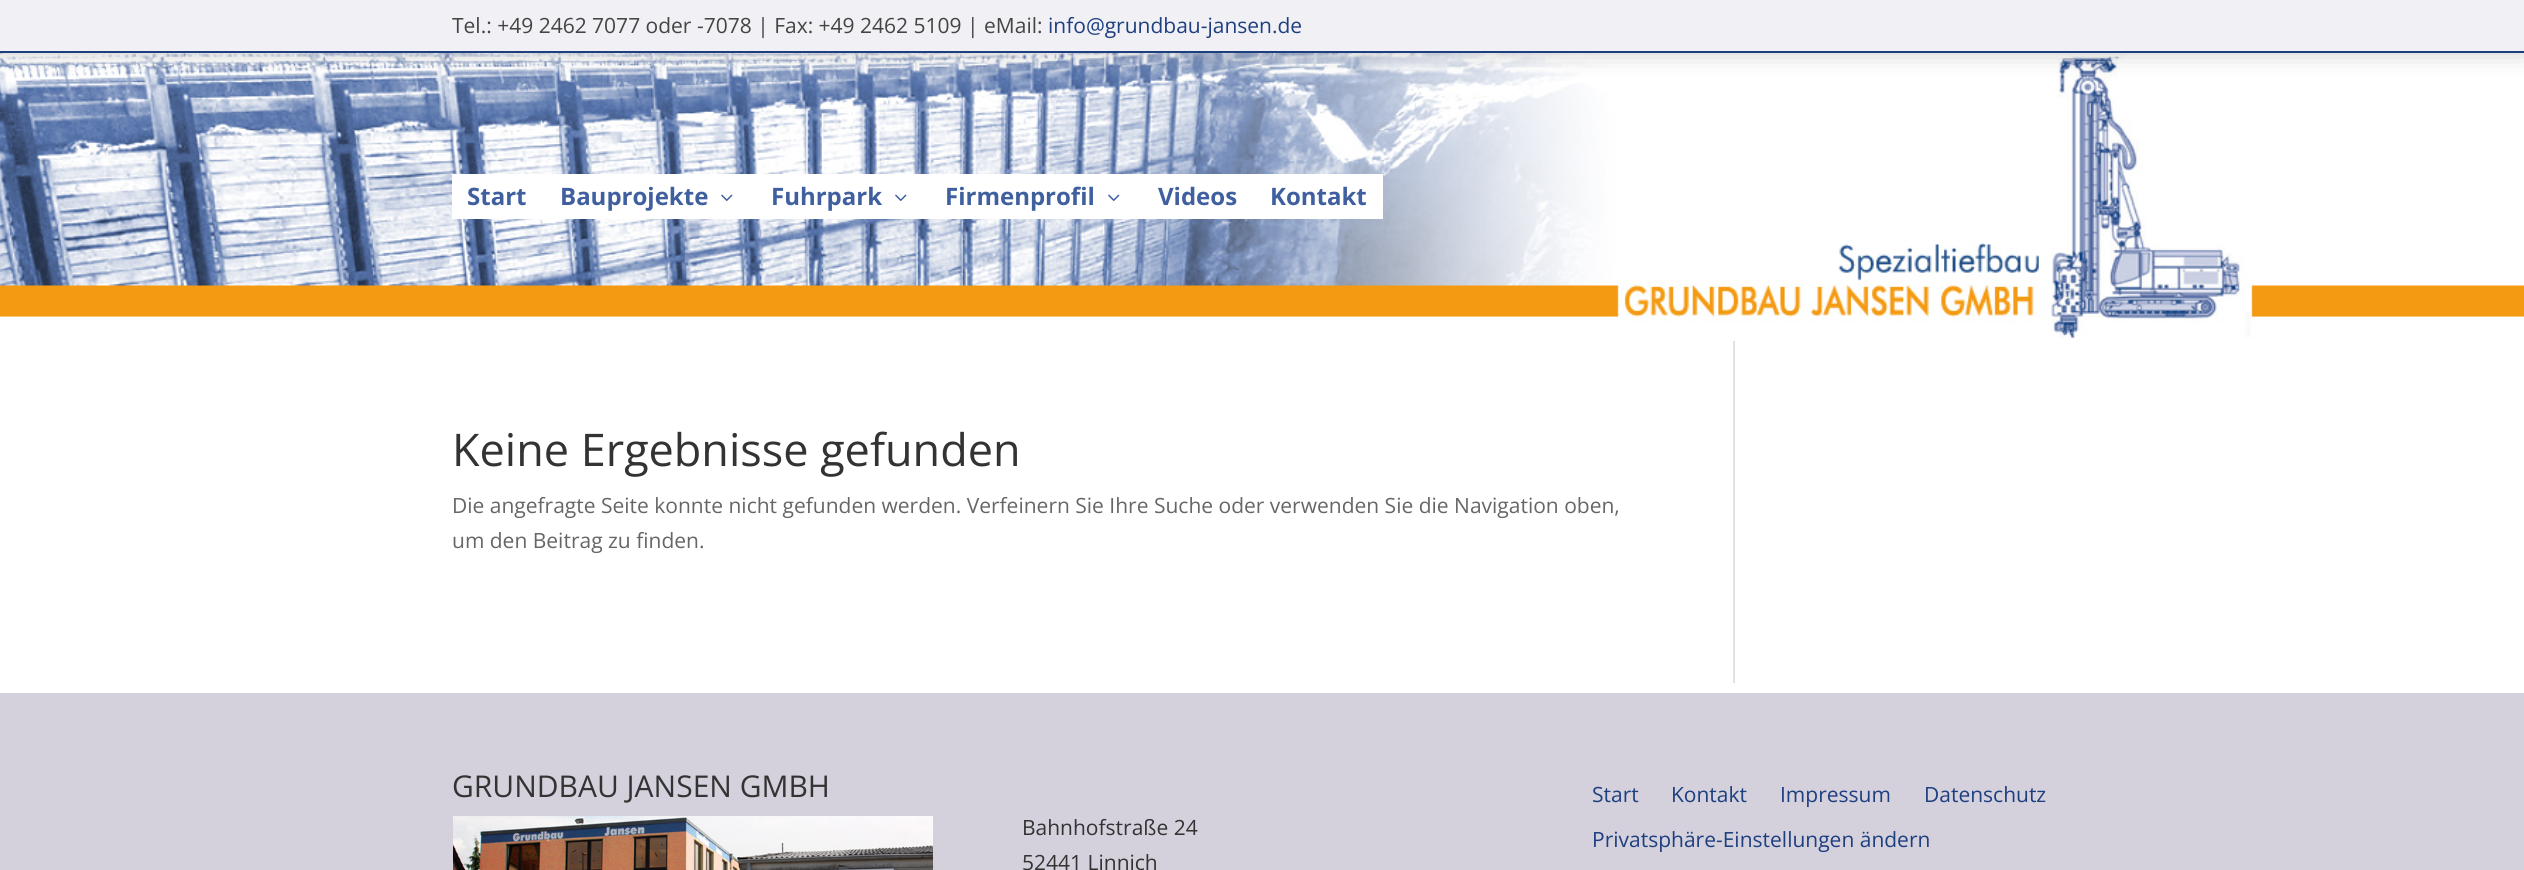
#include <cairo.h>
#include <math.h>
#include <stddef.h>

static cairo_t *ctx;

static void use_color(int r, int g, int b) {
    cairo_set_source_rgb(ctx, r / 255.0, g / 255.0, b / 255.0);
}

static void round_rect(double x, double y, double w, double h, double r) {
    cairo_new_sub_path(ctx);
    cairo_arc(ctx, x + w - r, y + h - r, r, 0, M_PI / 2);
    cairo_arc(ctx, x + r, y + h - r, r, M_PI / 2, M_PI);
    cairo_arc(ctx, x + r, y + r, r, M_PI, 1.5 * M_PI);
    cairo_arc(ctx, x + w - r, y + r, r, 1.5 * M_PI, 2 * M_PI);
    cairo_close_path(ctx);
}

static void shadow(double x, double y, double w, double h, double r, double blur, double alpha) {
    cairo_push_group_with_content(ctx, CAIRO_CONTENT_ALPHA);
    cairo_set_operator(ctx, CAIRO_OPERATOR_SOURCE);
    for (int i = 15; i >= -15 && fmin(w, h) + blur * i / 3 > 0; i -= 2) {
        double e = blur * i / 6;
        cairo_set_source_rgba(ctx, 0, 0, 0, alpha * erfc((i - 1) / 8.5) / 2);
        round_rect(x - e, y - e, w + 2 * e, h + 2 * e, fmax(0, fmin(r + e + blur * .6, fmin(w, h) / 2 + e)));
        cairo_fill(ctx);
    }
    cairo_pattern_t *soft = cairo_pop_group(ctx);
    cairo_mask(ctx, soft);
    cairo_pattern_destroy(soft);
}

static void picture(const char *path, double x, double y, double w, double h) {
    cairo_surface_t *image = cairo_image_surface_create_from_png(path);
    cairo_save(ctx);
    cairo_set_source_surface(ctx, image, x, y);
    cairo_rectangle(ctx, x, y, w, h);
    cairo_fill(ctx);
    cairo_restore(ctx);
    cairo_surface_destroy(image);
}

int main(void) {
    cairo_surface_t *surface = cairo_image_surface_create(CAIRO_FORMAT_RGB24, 2524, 870);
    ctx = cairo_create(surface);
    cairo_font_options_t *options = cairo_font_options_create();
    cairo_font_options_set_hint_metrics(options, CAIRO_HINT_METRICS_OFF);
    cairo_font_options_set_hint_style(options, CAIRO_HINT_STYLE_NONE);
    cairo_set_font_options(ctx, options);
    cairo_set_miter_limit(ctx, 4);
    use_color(255, 255, 255);
    cairo_paint(ctx);
    picture("img1.png", 0, 53, 2524, 285);
    use_color(0, 0, 0);
    shadow(0, -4, 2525, 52, 0, 13.5, 0.3);
    use_color(240, 240, 245);
    cairo_rectangle(ctx, 0, 0, 2524, 51);
    cairo_fill(ctx);
    use_color(30, 63, 127);
    cairo_rectangle(ctx, 0, 51, 2524, 2);
    cairo_fill(ctx);
    cairo_select_font_face(ctx, "Open Sans", CAIRO_FONT_SLANT_NORMAL, CAIRO_FONT_WEIGHT_NORMAL);
    cairo_set_font_size(ctx, 21);
    use_color(68, 68, 68);
    cairo_move_to(ctx, 452, 33);
    cairo_show_text(ctx, "Tel.: +49 2462 7077 oder -7078 | Fax: +49 2462 5109 | eMail:");
    use_color(30, 63, 127);
    cairo_move_to(ctx, 1048, 33);
    cairo_show_text(ctx, "info@grundbau-jansen.de");
    use_color(255, 255, 255);
    cairo_rectangle(ctx, 452, 174, 931, 45);
    cairo_fill(ctx);
    cairo_select_font_face(ctx, "Open Sans", CAIRO_FONT_SLANT_NORMAL, CAIRO_FONT_WEIGHT_BOLD);
    cairo_set_font_size(ctx, 24);
    use_color(63, 95, 159);
    cairo_move_to(ctx, 467, 205);
    cairo_show_text(ctx, "Start");
    cairo_move_to(ctx, 560, 205);
    cairo_show_text(ctx, "Bauprojekte");
    picture("img2.png", 721, 194, 12, 7);
    cairo_move_to(ctx, 771, 205);
    cairo_show_text(ctx, "Fuhrpark");
    picture("img2.png", 895, 194, 12, 7);
    cairo_move_to(ctx, 945, 205);
    cairo_show_text(ctx, "Firmenprofil");
    picture("img2.png", 1108, 194, 12, 7);
    cairo_move_to(ctx, 1158, 205);
    cairo_show_text(ctx, "Videos");
    cairo_move_to(ctx, 1270, 205);
    cairo_show_text(ctx, "Kontakt");
    cairo_select_font_face(ctx, "Open Sans", CAIRO_FONT_SLANT_NORMAL, CAIRO_FONT_WEIGHT_NORMAL);
    cairo_set_font_size(ctx, 45);
    use_color(51, 51, 51);
    cairo_move_to(ctx, 452, 466);
    cairo_show_text(ctx, "Keine Ergebnisse gefunden");
    cairo_set_font_size(ctx, 21);
    use_color(102, 102, 102);
    cairo_move_to(ctx, 452, 513);
    cairo_show_text(ctx, "Die angefragte Seite konnte nicht gefunden werden. Verfeinern Sie Ihre Suche oder verwenden Sie die Navigation oben,");
    cairo_move_to(ctx, 452, 548);
    cairo_show_text(ctx, "um den Beitrag zu finden.");
    use_color(226, 226, 226);
    cairo_rectangle(ctx, 1733, 341, 2, 342);
    cairo_fill(ctx);
    use_color(212, 209, 221);
    cairo_rectangle(ctx, 0, 693, 2524, 177);
    cairo_fill(ctx);
    cairo_set_font_size(ctx, 30);
    use_color(51, 51, 51);
    cairo_move_to(ctx, 452, 797);
    cairo_show_text(ctx, "GRUNDBAU JANSEN GMBH");
    picture("img3.png", 453, 816, 480, 54);
    cairo_set_font_size(ctx, 21);
    cairo_move_to(ctx, 1022, 835);
    cairo_show_text(ctx, "Bahnhofstraße 24");
    cairo_move_to(ctx, 1022, 870);
    cairo_show_text(ctx, "52441 Linnich");
    use_color(30, 63, 127);
    cairo_move_to(ctx, 1592, 802);
    cairo_show_text(ctx, "Start");
    cairo_move_to(ctx, 1671, 802);
    cairo_show_text(ctx, "Kontakt");
    cairo_move_to(ctx, 1780, 802);
    cairo_show_text(ctx, "Impressum");
    cairo_move_to(ctx, 1924, 802);
    cairo_show_text(ctx, "Datenschutz");
    cairo_move_to(ctx, 1592, 847);
    cairo_show_text(ctx, "Privatsphäre-Einstellungen ändern");
    cairo_surface_write_to_png(surface, "result.png");
    cairo_font_options_destroy(options);
    cairo_destroy(ctx);
    cairo_surface_destroy(surface);
    return 0;
}
